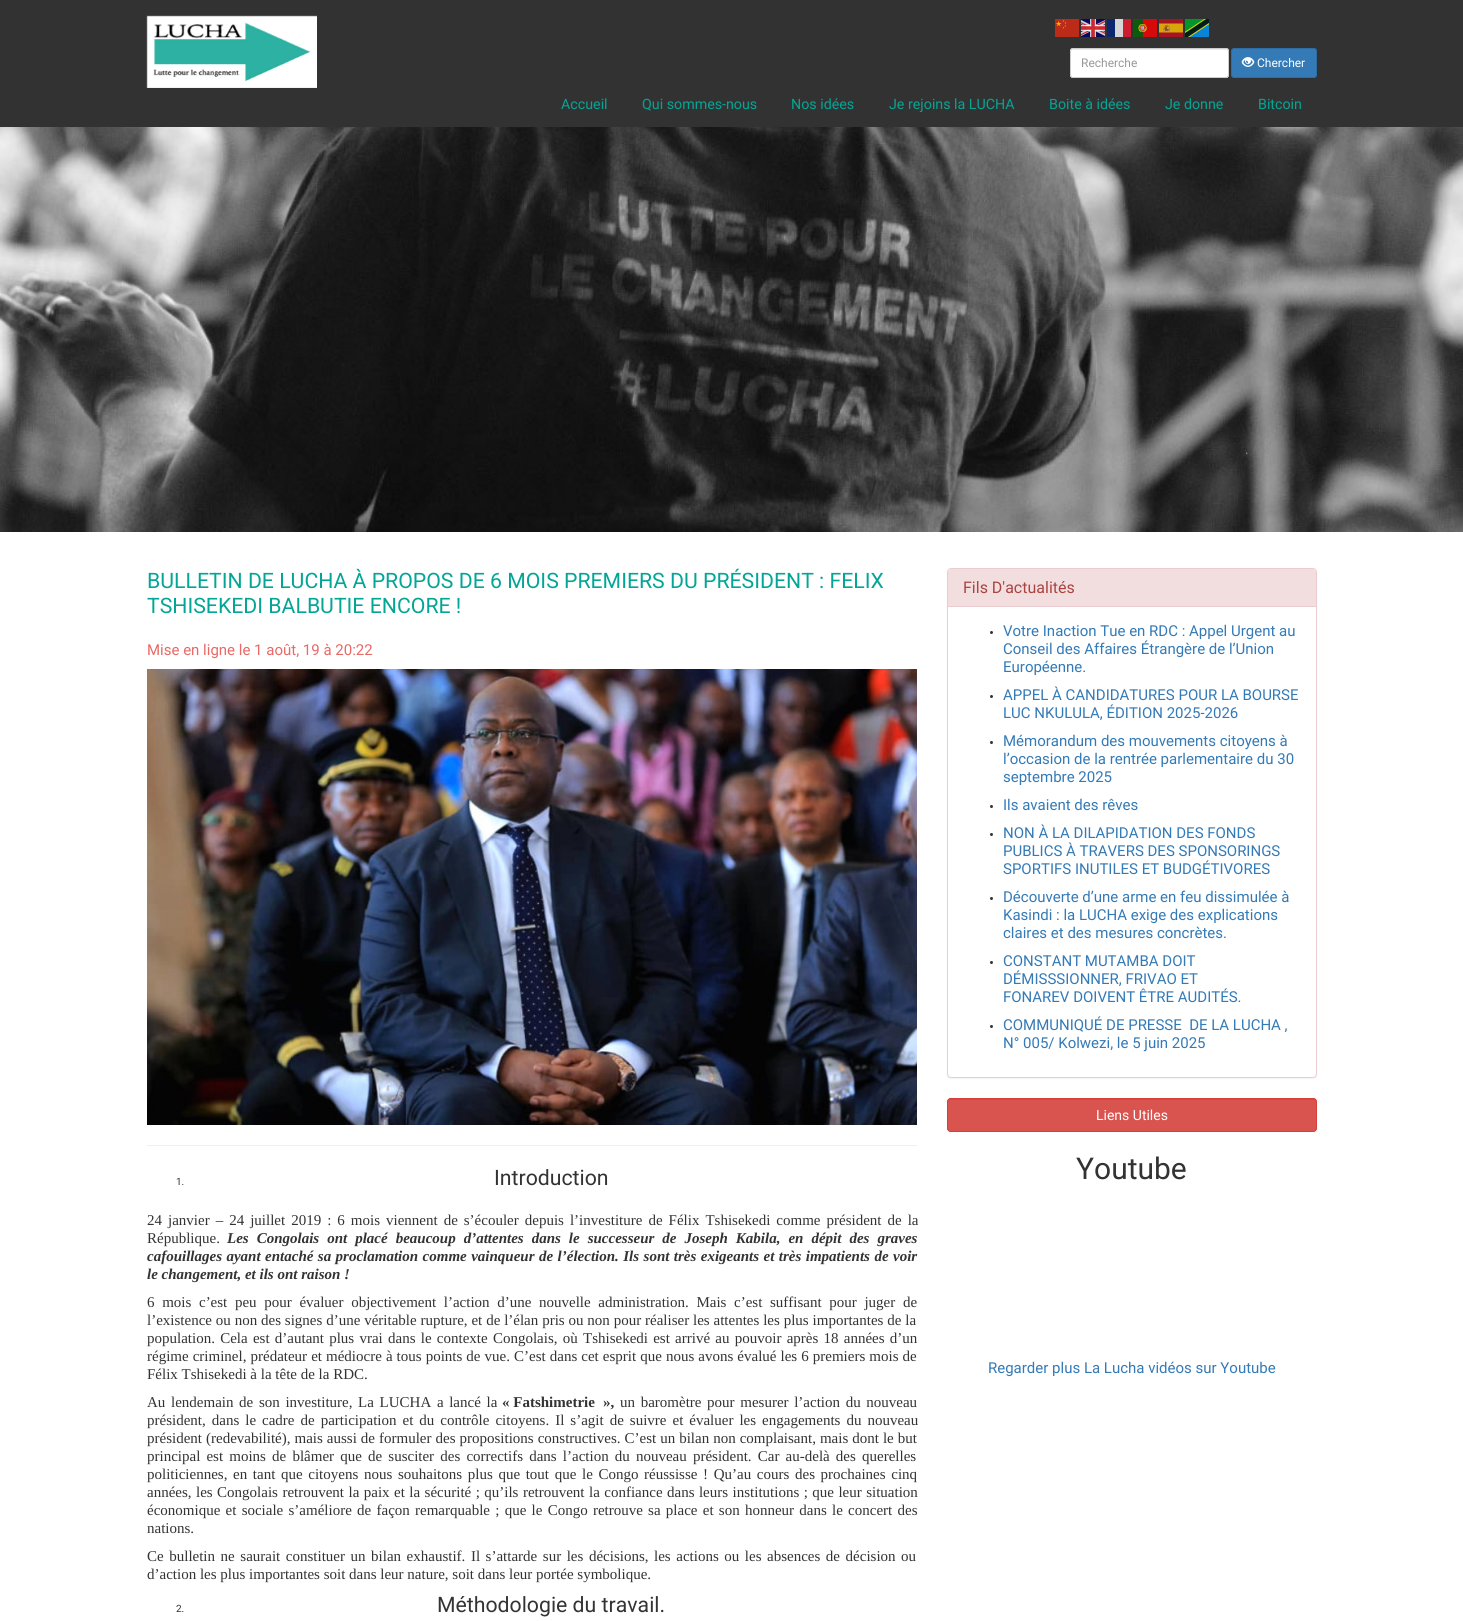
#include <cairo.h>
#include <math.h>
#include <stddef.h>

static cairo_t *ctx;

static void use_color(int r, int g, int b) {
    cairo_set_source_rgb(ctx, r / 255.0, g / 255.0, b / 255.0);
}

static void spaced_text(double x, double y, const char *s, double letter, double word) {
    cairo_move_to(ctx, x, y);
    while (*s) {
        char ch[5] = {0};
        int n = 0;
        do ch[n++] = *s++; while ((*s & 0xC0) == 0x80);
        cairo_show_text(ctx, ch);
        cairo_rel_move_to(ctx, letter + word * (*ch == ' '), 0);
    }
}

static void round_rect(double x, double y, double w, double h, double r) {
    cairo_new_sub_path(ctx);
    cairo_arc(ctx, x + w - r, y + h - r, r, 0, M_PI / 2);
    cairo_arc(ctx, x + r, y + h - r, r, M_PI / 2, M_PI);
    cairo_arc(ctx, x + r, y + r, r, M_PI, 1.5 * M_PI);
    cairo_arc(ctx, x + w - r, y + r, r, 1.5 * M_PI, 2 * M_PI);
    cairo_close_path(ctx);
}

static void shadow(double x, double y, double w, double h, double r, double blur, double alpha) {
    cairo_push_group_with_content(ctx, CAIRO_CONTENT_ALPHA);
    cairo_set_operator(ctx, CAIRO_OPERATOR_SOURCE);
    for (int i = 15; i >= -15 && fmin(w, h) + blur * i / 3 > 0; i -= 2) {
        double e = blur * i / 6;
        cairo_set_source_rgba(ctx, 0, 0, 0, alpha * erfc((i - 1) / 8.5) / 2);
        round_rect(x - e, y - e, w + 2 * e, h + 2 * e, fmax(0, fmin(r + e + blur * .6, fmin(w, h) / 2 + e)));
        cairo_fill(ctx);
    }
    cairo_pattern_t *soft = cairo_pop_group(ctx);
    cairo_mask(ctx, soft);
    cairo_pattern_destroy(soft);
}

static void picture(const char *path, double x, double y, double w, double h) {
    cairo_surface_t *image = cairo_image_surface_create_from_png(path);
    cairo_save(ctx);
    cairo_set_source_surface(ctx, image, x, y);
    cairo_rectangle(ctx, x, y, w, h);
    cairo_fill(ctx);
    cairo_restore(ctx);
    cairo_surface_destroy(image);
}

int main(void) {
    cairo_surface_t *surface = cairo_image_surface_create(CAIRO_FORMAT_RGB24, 1463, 1621);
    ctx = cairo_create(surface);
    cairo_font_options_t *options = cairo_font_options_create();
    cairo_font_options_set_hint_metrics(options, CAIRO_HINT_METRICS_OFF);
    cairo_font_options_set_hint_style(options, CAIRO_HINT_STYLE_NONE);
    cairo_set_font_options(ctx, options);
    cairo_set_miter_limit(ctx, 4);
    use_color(255, 255, 255);
    cairo_paint(ctx);
    use_color(50, 50, 50);
    cairo_rectangle(ctx, 0, 0, 1463, 127);
    cairo_fill(ctx);
    picture("img1.png", 146, 15, 171, 73);
    picture("img2.png", 1055, 19, 24, 18);
    picture("img3.png", 1081, 19, 24, 18);
    use_color(10, 40, 112);
    cairo_rectangle(ctx, 1107, 19, 8, 18);
    cairo_fill(ctx);
    use_color(214, 214, 214);
    cairo_rectangle(ctx, 1115, 19, 8, 18);
    cairo_fill(ctx);
    use_color(204, 29, 48);
    cairo_rectangle(ctx, 1123, 19, 8, 18);
    cairo_fill(ctx);
    picture("img4.png", 1133, 19, 24, 18);
    picture("img5.png", 1159, 19, 24, 18);
    picture("img6.png", 1185, 19, 24, 18);
    use_color(255, 255, 255);
    round_rect(1070, 48, 159, 30, 3);
    cairo_fill(ctx);
    use_color(236, 236, 236);
    cairo_new_path(ctx);
    cairo_move_to(ctx, 1073, 50);
    cairo_line_to(ctx, 1226, 50);
    cairo_curve_to(ctx, 1227, 50, 1228, 51, 1228, 52);
    cairo_curve_to(ctx, 1228, 51, 1228, 49, 1226, 49);
    cairo_line_to(ctx, 1073, 49);
    cairo_curve_to(ctx, 1071, 49, 1071, 51, 1071, 52);
    cairo_curve_to(ctx, 1071, 51, 1072, 50, 1073, 50);
    cairo_close_path(ctx);
    cairo_fill(ctx);
    round_rect(1070.5, 48.5, 158, 29, 2.5);
    use_color(204, 204, 204);
    cairo_set_line_width(ctx, 1);
    cairo_stroke(ctx);
    cairo_select_font_face(ctx, "Roboto", CAIRO_FONT_SLANT_NORMAL, CAIRO_FONT_WEIGHT_NORMAL);
    cairo_set_font_size(ctx, 12);
    use_color(153, 153, 153);
    cairo_move_to(ctx, 1081, 67);
    cairo_show_text(ctx, "Recherche");
    use_color(51, 122, 183);
    round_rect(1231.5, 48.5, 85, 29, 2.5);
    cairo_fill_preserve(ctx);
    use_color(46, 109, 164);
    cairo_stroke(ctx);
    picture("img7.png", 1241, 57, 14, 10);
    use_color(255, 255, 255);
    cairo_move_to(ctx, 1257, 67);
    cairo_show_text(ctx, "Chercher");
    cairo_set_font_size(ctx, 14.25);
    use_color(3, 166, 150);
    cairo_move_to(ctx, 561, 109);
    cairo_show_text(ctx, "Accueil");
    cairo_move_to(ctx, 642, 109);
    cairo_show_text(ctx, "Qui sommes-nous");
    cairo_move_to(ctx, 791, 109);
    cairo_show_text(ctx, "Nos idées");
    cairo_move_to(ctx, 889, 109);
    cairo_show_text(ctx, "Je rejoins la LUCHA");
    cairo_move_to(ctx, 1049, 109);
    cairo_show_text(ctx, "Boite à idées");
    cairo_move_to(ctx, 1165, 109);
    cairo_show_text(ctx, "Je donne");
    cairo_move_to(ctx, 1258, 109);
    cairo_show_text(ctx, "Bitcoin");
    picture("img8.png", 0, 127, 1463, 405);
    cairo_set_font_size(ctx, 21.25);
    cairo_move_to(ctx, 147, 588);
    cairo_show_text(ctx, "BULLETIN DE LUCHA À PROPOS DE 6 MOIS PREMIERS DU PRÉSIDENT : FELIX");
    cairo_move_to(ctx, 147, 613);
    cairo_show_text(ctx, "TSHISEKEDI BALBUTIE ENCORE !");
    cairo_set_font_size(ctx, 15);
    use_color(232, 105, 102);
    cairo_move_to(ctx, 147, 655);
    cairo_show_text(ctx, "Mise en ligne le 1 août, 19 à 20:22");
    picture("img9.png", 147, 669, 770, 456);
    use_color(238, 238, 238);
    cairo_rectangle(ctx, 147, 1145, 770, 1);
    cairo_fill(ctx);
    cairo_set_font_size(ctx, 10);
    use_color(51, 51, 51);
    cairo_move_to(ctx, 176, 1185);
    cairo_show_text(ctx, "1.");
    cairo_set_font_size(ctx, 21.25);
    cairo_move_to(ctx, 494, 1185);
    cairo_show_text(ctx, "Introduction");
    cairo_select_font_face(ctx, "Liberation Serif", CAIRO_FONT_SLANT_NORMAL, CAIRO_FONT_WEIGHT_NORMAL);
    cairo_set_font_size(ctx, 15);
    spaced_text(147, 1225, "24 janvier – 24 juillet 2019 : 6 mois viennent de s’écouler depuis l’investiture de Félix Tshisekedi comme président de la", 0, 2.25);
    cairo_move_to(ctx, 147, 1243);
    cairo_show_text(ctx, "République.");
    cairo_select_font_face(ctx, "Liberation Serif", CAIRO_FONT_SLANT_ITALIC, CAIRO_FONT_WEIGHT_BOLD);
    spaced_text(227, 1243, "Les Congolais ont placé beaucoup d’attentes dans le successeur de Joseph Kabila, en dépit des graves", 0, 4.25);
    spaced_text(147, 1261, "cafouillages ayant entaché sa proclamation comme vainqueur de l’élection. Ils sont très exigeants et très impatients de voir", 0, 0.7);
    cairo_move_to(ctx, 147, 1279);
    cairo_show_text(ctx, "le changement, et ils ont raison !");
    cairo_select_font_face(ctx, "Liberation Serif", CAIRO_FONT_SLANT_NORMAL, CAIRO_FONT_WEIGHT_NORMAL);
    spaced_text(147, 1307, "6 mois c’est peu pour évaluer objectivement l’action d’une nouvelle administration. Mais c’est suffisant pour juger de", 0, 3.9);
    spaced_text(147, 1325, "l’existence ou non des signes d’une véritable rupture, et de l’élan pris ou non pour réaliser les attentes les plus importantes de la", 0, 0.1);
    spaced_text(147, 1343, "population. Cela est d’autant plus vrai dans le contexte Congolais, où Tshisekedi est arrivé au pouvoir après 18 années d’un", 0, 1.5);
    spaced_text(147, 1361, "régime criminel, prédateur et médiocre à tous points de vue. C’est dans cet esprit que nous avons évalué les 6 premiers mois de", 0, 0.3);
    cairo_move_to(ctx, 147, 1379);
    cairo_show_text(ctx, "Félix Tshisekedi à la tête de la RDC.");
    spaced_text(147, 1407, "Au lendemain de son investiture, La LUCHA a lancé la", 0, 1.9);
    cairo_select_font_face(ctx, "Liberation Serif", CAIRO_FONT_SLANT_NORMAL, CAIRO_FONT_WEIGHT_BOLD);
    cairo_move_to(ctx, 502, 1407);
    cairo_show_text(ctx, "« Fatshimetrie");
    cairo_move_to(ctx, 603, 1407);
    cairo_show_text(ctx, "»,");
    cairo_select_font_face(ctx, "Liberation Serif", CAIRO_FONT_SLANT_NORMAL, CAIRO_FONT_WEIGHT_NORMAL);
    spaced_text(620, 1407, "un baromètre pour mesurer l’action du nouveau", 0, 1.9);
    spaced_text(147, 1425, "président, dans le cadre de participation et du contrôle citoyens. Il s’agit de suivre et évaluer les engagements du nouveau", 0, 2.25);
    spaced_text(147, 1443, "président (redevabilité), mais aussi de formuler des propositions constructives. C’est un bilan non complaisant, mais dont le but", 0, 0.25);
    spaced_text(147, 1461, "principal est moins de blâmer que de susciter des correctifs dans l’action du nouveau président. Car au-delà des querelles", 0, 2.4);
    spaced_text(147, 1479, "politiciennes, en tant que citoyens nous souhaitons plus que tout que le Congo réussisse ! Qu’au cours des prochaines cinq", 0, 1.9);
    spaced_text(147, 1497, "années, les Congolais retrouvent la paix et la sécurité ; qu’ils retrouvent la confiance dans leurs institutions ; que leur situation", 0, 0.7);
    spaced_text(147, 1515, "économique et sociale s’améliore de façon remarquable ; que le Congo retrouve sa place et son honneur dans le concert des", 0, 1.5);
    cairo_move_to(ctx, 147, 1533);
    cairo_show_text(ctx, "nations.");
    spaced_text(147, 1561, "Ce bulletin ne saurait constituer un bilan exhaustif. Il s’attarde sur les décisions, les actions ou les absences de décision ou", 0, 1.8);
    cairo_move_to(ctx, 147, 1579);
    cairo_show_text(ctx, "d’action les plus importantes soit dans leur nature, soit dans leur portée symbolique.");
    cairo_select_font_face(ctx, "Roboto", CAIRO_FONT_SLANT_NORMAL, CAIRO_FONT_WEIGHT_NORMAL);
    cairo_set_font_size(ctx, 10);
    cairo_move_to(ctx, 176, 1612);
    cairo_show_text(ctx, "2.");
    cairo_set_font_size(ctx, 21.25);
    cairo_move_to(ctx, 437, 1612);
    cairo_show_text(ctx, "Méthodologie du travail.");
    use_color(0, 0, 0);
    shadow(947, 569, 370, 510, 4, 0.5, 0.05);
    use_color(255, 255, 255);
    round_rect(947.5, 568.5, 369, 509, 3.5);
    cairo_fill_preserve(ctx);
    use_color(235, 204, 209);
    cairo_stroke(ctx);
    use_color(242, 222, 222);
    cairo_new_path(ctx);
    cairo_move_to(ctx, 951, 569);
    cairo_line_to(ctx, 1313, 569);
    cairo_curve_to(ctx, 1314.5, 569, 1316, 570.5, 1316, 572);
    cairo_line_to(ctx, 1316, 607);
    cairo_line_to(ctx, 948, 607);
    cairo_line_to(ctx, 948, 572);
    cairo_curve_to(ctx, 948, 570.5, 949.5, 569, 951, 569);
    cairo_close_path(ctx);
    cairo_fill(ctx);
    use_color(235, 204, 209);
    cairo_rectangle(ctx, 948, 606, 368, 1);
    cairo_fill(ctx);
    cairo_set_font_size(ctx, 16);
    use_color(169, 68, 66);
    cairo_move_to(ctx, 963, 593);
    cairo_show_text(ctx, "Fils D'actualités");
    use_color(51, 51, 51);
    cairo_new_path(ctx);
    cairo_arc(ctx, 991.5, 632.5, 1.5, 0, 2 * M_PI);
    cairo_fill(ctx);
    cairo_set_font_size(ctx, 15);
    use_color(51, 122, 183);
    cairo_move_to(ctx, 1003, 636);
    cairo_show_text(ctx, "Votre Inaction Tue en RDC : Appel Urgent au");
    cairo_move_to(ctx, 1003, 654);
    cairo_show_text(ctx, "Conseil des Affaires Étrangère de l’Union");
    cairo_move_to(ctx, 1003, 672);
    cairo_show_text(ctx, "Européenne.");
    use_color(51, 51, 51);
    cairo_new_path(ctx);
    cairo_arc(ctx, 991.5, 696.5, 1.5, 0, 2 * M_PI);
    cairo_fill(ctx);
    use_color(51, 122, 183);
    cairo_move_to(ctx, 1003, 700);
    cairo_show_text(ctx, "APPEL À CANDIDATURES POUR LA BOURSE");
    cairo_move_to(ctx, 1003, 718);
    cairo_show_text(ctx, "LUC NKULULA, ÉDITION 2025-2026");
    use_color(51, 51, 51);
    cairo_new_path(ctx);
    cairo_arc(ctx, 991.5, 742.5, 1.5, 0, 2 * M_PI);
    cairo_fill(ctx);
    use_color(51, 122, 183);
    cairo_move_to(ctx, 1003, 746);
    cairo_show_text(ctx, "Mémorandum des mouvements citoyens à");
    cairo_move_to(ctx, 1003, 764);
    cairo_show_text(ctx, "l’occasion de la rentrée parlementaire du 30");
    cairo_move_to(ctx, 1003, 782);
    cairo_show_text(ctx, "septembre 2025");
    use_color(51, 51, 51);
    cairo_new_path(ctx);
    cairo_arc(ctx, 991.5, 806.5, 1.5, 0, 2 * M_PI);
    cairo_fill(ctx);
    use_color(51, 122, 183);
    cairo_move_to(ctx, 1003, 810);
    cairo_show_text(ctx, "Ils avaient des rêves");
    use_color(51, 51, 51);
    cairo_new_path(ctx);
    cairo_arc(ctx, 991.5, 834.5, 1.5, 0, 2 * M_PI);
    cairo_fill(ctx);
    use_color(51, 122, 183);
    cairo_move_to(ctx, 1003, 838);
    cairo_show_text(ctx, "NON À LA DILAPIDATION DES FONDS");
    cairo_move_to(ctx, 1003, 856);
    cairo_show_text(ctx, "PUBLICS À TRAVERS DES SPONSORINGS");
    cairo_move_to(ctx, 1003, 874);
    cairo_show_text(ctx, "SPORTIFS INUTILES ET BUDGÉTIVORES");
    use_color(51, 51, 51);
    cairo_new_path(ctx);
    cairo_arc(ctx, 991.5, 898.5, 1.5, 0, 2 * M_PI);
    cairo_fill(ctx);
    use_color(51, 122, 183);
    cairo_move_to(ctx, 1003, 902);
    cairo_show_text(ctx, "Découverte d’une arme en feu dissimulée à");
    cairo_move_to(ctx, 1003, 920);
    cairo_show_text(ctx, "Kasindi : la LUCHA exige des explications");
    cairo_move_to(ctx, 1003, 938);
    cairo_show_text(ctx, "claires et des mesures concrètes.");
    use_color(51, 51, 51);
    cairo_new_path(ctx);
    cairo_arc(ctx, 991.5, 962.5, 1.5, 0, 2 * M_PI);
    cairo_fill(ctx);
    use_color(51, 122, 183);
    cairo_move_to(ctx, 1003, 966);
    cairo_show_text(ctx, "CONSTANT MUTAMBA DOIT");
    cairo_move_to(ctx, 1003, 984);
    cairo_show_text(ctx, "DÉMISSSIONNER, FRIVAO ET");
    cairo_move_to(ctx, 1003, 1002);
    cairo_show_text(ctx, "FONAREV DOIVENT ÊTRE AUDITÉS.");
    use_color(51, 51, 51);
    cairo_new_path(ctx);
    cairo_arc(ctx, 991.5, 1026.5, 1.5, 0, 2 * M_PI);
    cairo_fill(ctx);
    use_color(51, 122, 183);
    cairo_move_to(ctx, 1003, 1030);
    cairo_show_text(ctx, "COMMUNIQUÉ DE PRESSE  DE LA LUCHA ,");
    cairo_move_to(ctx, 1003, 1048);
    cairo_show_text(ctx, "N° 005/ Kolwezi, le 5 juin 2025");
    use_color(217, 83, 79);
    round_rect(947, 1098, 370, 34, 4);
    cairo_fill(ctx);
    use_color(201, 77, 73);
    cairo_new_path(ctx);
    cairo_move_to(ctx, 951, 1100);
    cairo_line_to(ctx, 1313, 1100);
    cairo_curve_to(ctx, 1315, 1100, 1316, 1101, 1316, 1103);
    cairo_curve_to(ctx, 1316, 1101, 1315, 1099, 1313, 1099);
    cairo_line_to(ctx, 951, 1099);
    cairo_line_to(ctx, 949, 1100);
    cairo_line_to(ctx, 948, 1103);
    cairo_curve_to(ctx, 948, 1101, 949, 1100, 951, 1100);
    cairo_close_path(ctx);
    cairo_fill(ctx);
    round_rect(947.5, 1098.5, 369, 33, 3.5);
    use_color(212, 63, 58);
    cairo_stroke(ctx);
    cairo_set_font_size(ctx, 14);
    use_color(255, 255, 255);
    cairo_move_to(ctx, 1096, 1120);
    cairo_show_text(ctx, "Liens Utiles");
    cairo_set_font_size(ctx, 30);
    use_color(51, 51, 51);
    cairo_move_to(ctx, 1076, 1179);
    cairo_show_text(ctx, "Youtube");
    cairo_set_font_size(ctx, 15);
    use_color(51, 122, 183);
    cairo_move_to(ctx, 988, 1373);
    cairo_show_text(ctx, "Regarder plus La Lucha vidéos sur Youtube");
    cairo_surface_write_to_png(surface, "result.png");
    cairo_font_options_destroy(options);
    cairo_destroy(ctx);
    cairo_surface_destroy(surface);
    return 0;
}
